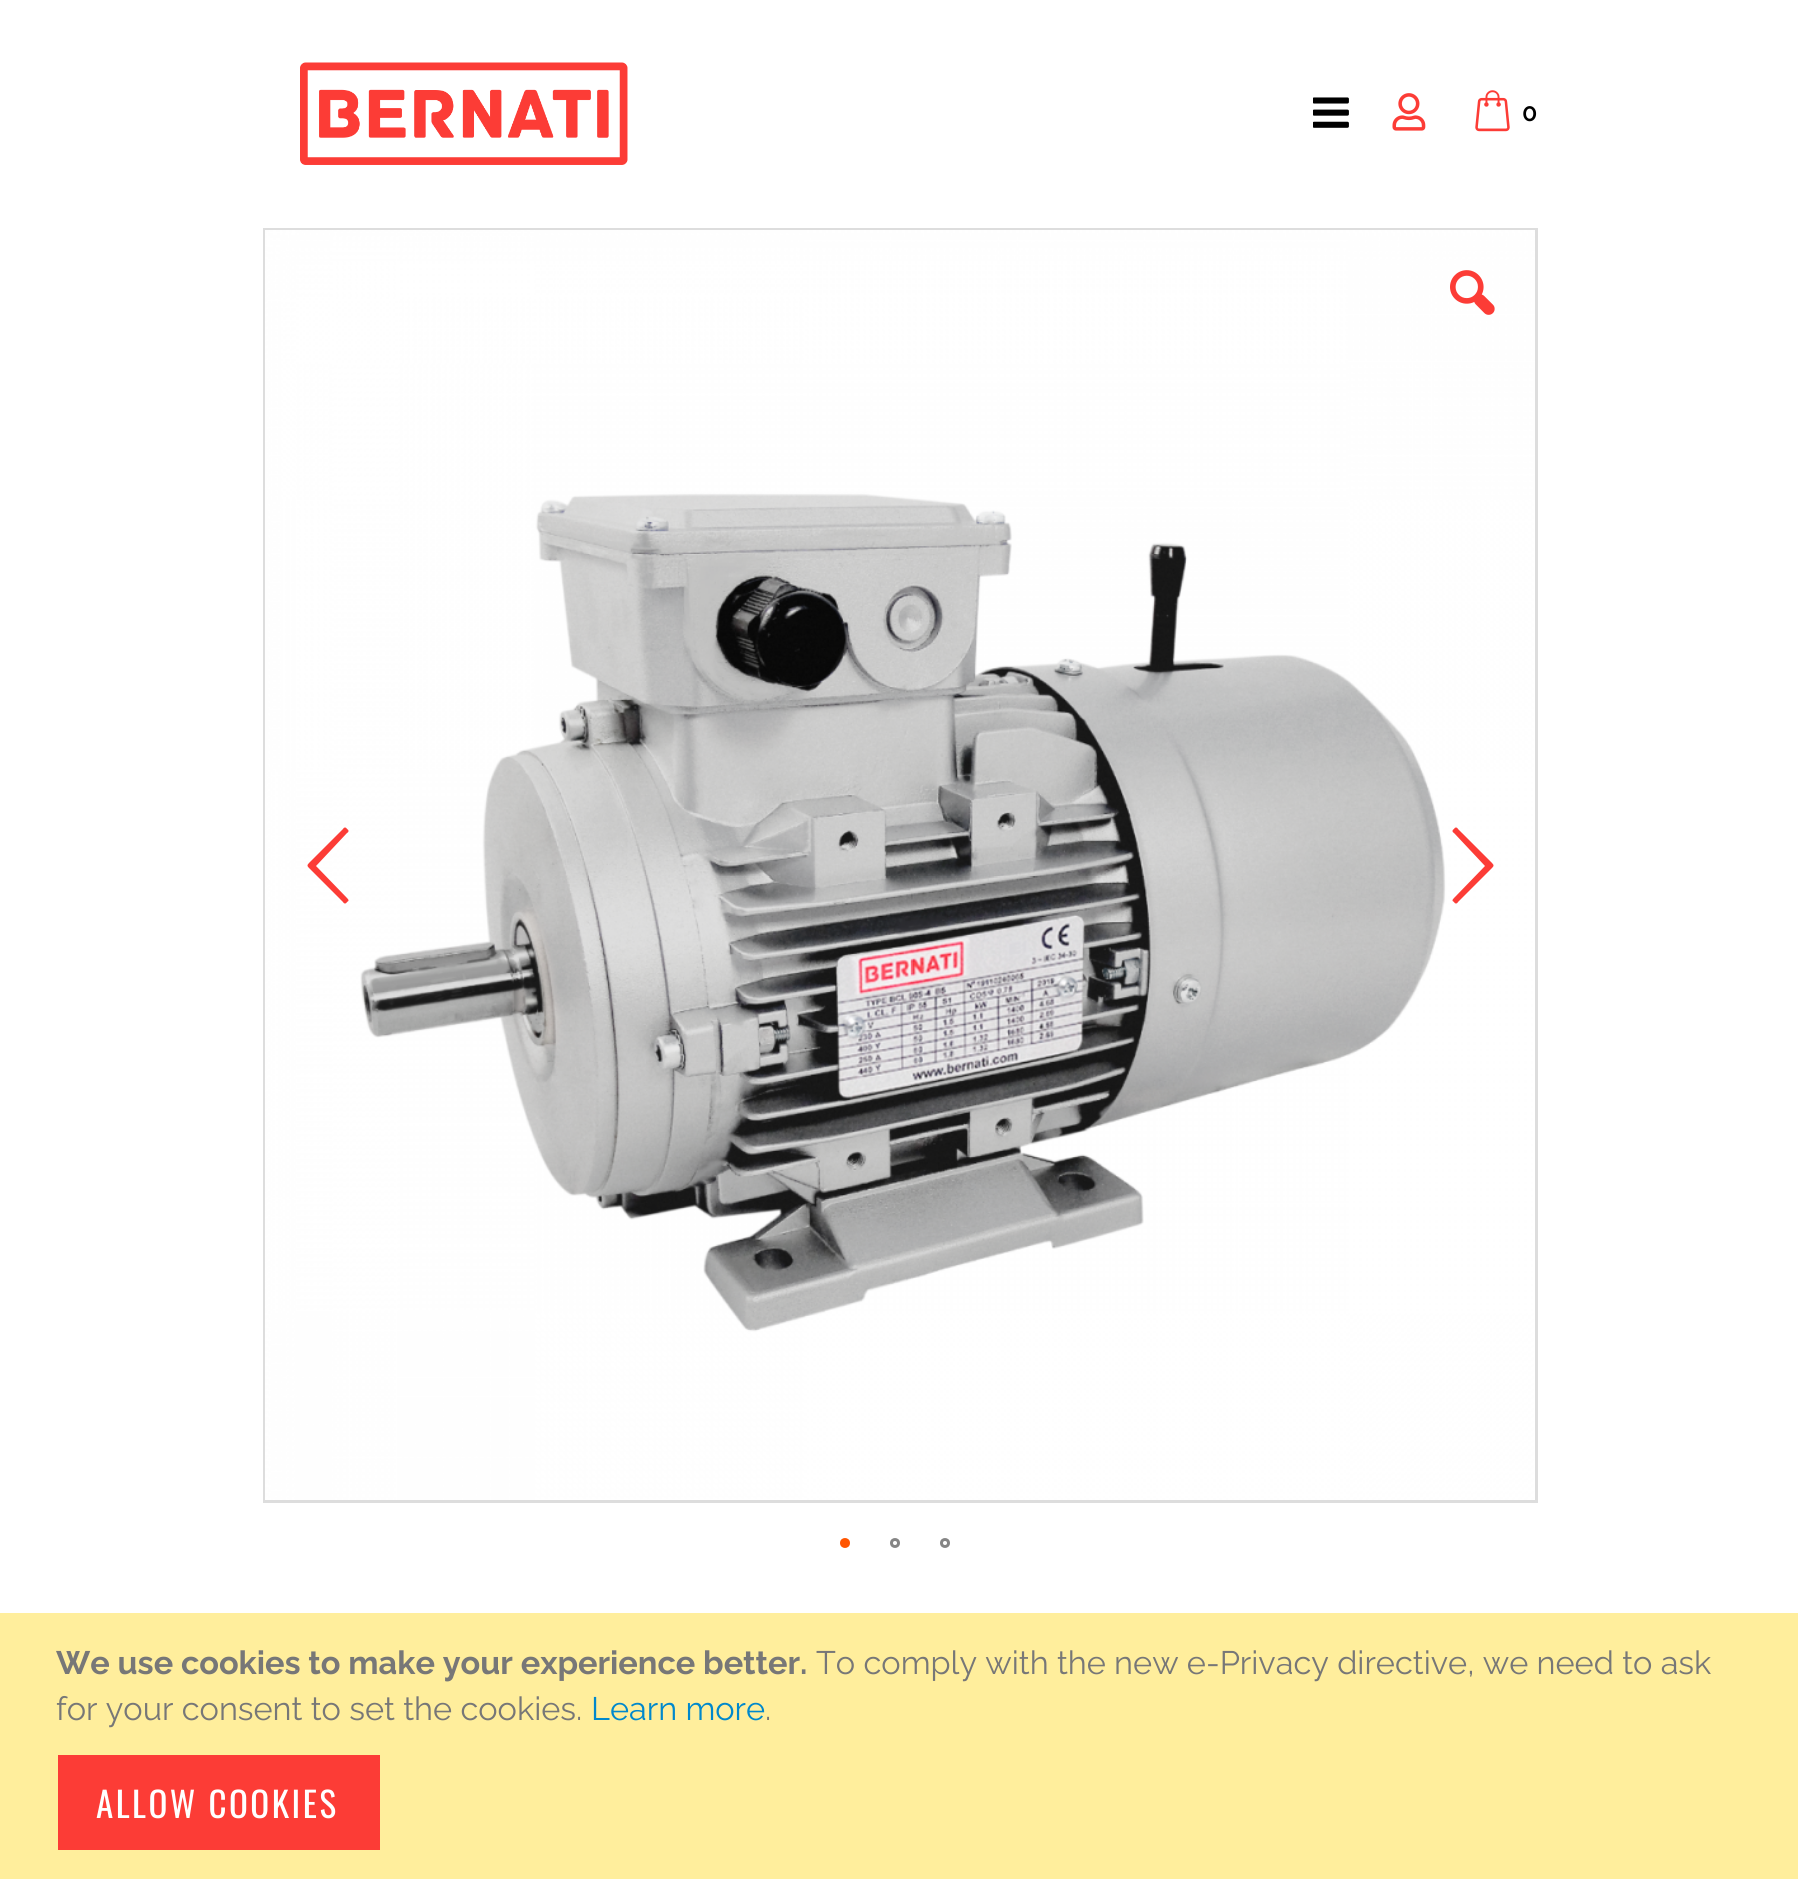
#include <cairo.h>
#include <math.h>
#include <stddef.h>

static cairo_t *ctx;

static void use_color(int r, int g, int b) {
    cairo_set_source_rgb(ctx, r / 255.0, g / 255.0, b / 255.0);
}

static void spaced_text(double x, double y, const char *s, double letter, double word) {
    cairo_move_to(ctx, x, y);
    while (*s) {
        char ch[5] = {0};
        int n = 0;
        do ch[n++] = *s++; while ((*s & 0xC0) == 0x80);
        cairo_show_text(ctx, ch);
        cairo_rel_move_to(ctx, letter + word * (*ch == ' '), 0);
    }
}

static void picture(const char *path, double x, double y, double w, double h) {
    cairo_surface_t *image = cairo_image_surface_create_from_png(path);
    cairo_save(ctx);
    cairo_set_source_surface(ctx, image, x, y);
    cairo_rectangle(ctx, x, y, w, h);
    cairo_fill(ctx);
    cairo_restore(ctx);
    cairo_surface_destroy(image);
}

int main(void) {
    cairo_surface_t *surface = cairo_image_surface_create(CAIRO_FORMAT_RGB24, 1798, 1879);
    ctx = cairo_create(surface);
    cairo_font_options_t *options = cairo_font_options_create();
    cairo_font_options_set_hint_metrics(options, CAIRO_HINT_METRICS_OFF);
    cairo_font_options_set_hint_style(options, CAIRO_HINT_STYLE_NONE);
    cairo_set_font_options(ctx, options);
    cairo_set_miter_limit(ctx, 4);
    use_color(255, 255, 255);
    cairo_paint(ctx);
    picture("img1.png", 300, 62, 328, 103);
    picture("img2.png", 1313, 97, 36, 31);
    picture("img3.png", 1392, 93, 34, 38);
    picture("img4.png", 1475, 90, 35, 42);
    cairo_select_font_face(ctx, "Raleway SemiBold", CAIRO_FONT_SLANT_NORMAL, CAIRO_FONT_WEIGHT_NORMAL);
    cairo_set_font_size(ctx, 25);
    use_color(0, 0, 0);
    cairo_move_to(ctx, 1522, 121);
    cairo_show_text(ctx, "0");
    cairo_rectangle(ctx, 264.5, 229.5, 1272, 1272);
    use_color(221, 221, 221);
    cairo_set_line_width(ctx, 3);
    cairo_stroke(ctx);
    picture("img5.png", 265, 230, 1270, 1270);
    picture("img6.png", 1450, 270, 45, 45);
    use_color(252, 60, 54);
    cairo_new_path(ctx);
    cairo_move_to(ctx, 347, 898);
    cairo_curve_to(ctx, 349, 900, 349, 901, 347, 902);
    cairo_curve_to(ctx, 346, 904, 344, 904, 343, 902);
    cairo_line_to(ctx, 309, 868);
    cairo_curve_to(ctx, 307, 866, 307, 865, 309, 863);
    cairo_line_to(ctx, 343, 829);
    cairo_curve_to(ctx, 344, 827, 346, 827, 347, 829);
    cairo_curve_to(ctx, 349, 830, 349, 832, 347, 833);
    cairo_line_to(ctx, 316, 866);
    cairo_close_path(ctx);
    cairo_fill(ctx);
    cairo_new_path(ctx);
    cairo_move_to(ctx, 1454, 898);
    cairo_line_to(ctx, 1485, 866);
    cairo_line_to(ctx, 1454, 833);
    cairo_curve_to(ctx, 1452, 832, 1452, 830, 1454, 829);
    cairo_curve_to(ctx, 1455, 827, 1457, 827, 1458, 829);
    cairo_line_to(ctx, 1492, 863);
    cairo_curve_to(ctx, 1494, 865, 1494, 866, 1492, 868);
    cairo_line_to(ctx, 1458, 902);
    cairo_curve_to(ctx, 1457, 904, 1455, 904, 1454, 902);
    cairo_curve_to(ctx, 1452, 901, 1452, 900, 1454, 898);
    cairo_close_path(ctx);
    cairo_fill(ctx);
    use_color(255, 85, 1);
    cairo_arc(ctx, 845, 1543, 3.5, 0, 2 * M_PI);
    cairo_fill_preserve(ctx);
    cairo_stroke(ctx);
    cairo_arc(ctx, 895, 1543, 3.5, 0, 2 * M_PI);
    use_color(133, 133, 133);
    cairo_stroke(ctx);
    cairo_arc(ctx, 945, 1543, 3.5, 0, 2 * M_PI);
    cairo_stroke(ctx);
    use_color(255, 238, 156);
    cairo_rectangle(ctx, 0, 1613, 1798, 266);
    cairo_fill(ctx);
    cairo_select_font_face(ctx, "Raleway", CAIRO_FONT_SLANT_NORMAL, CAIRO_FONT_WEIGHT_BOLD);
    cairo_set_font_size(ctx, 32.5);
    use_color(119, 119, 119);
    cairo_move_to(ctx, 56, 1674);
    cairo_show_text(ctx, "We use cookies to make your experience better.");
    cairo_select_font_face(ctx, "Raleway", CAIRO_FONT_SLANT_NORMAL, CAIRO_FONT_WEIGHT_NORMAL);
    cairo_move_to(ctx, 816, 1674);
    cairo_show_text(ctx, "To comply with the new e-Privacy directive, we need to ask");
    cairo_move_to(ctx, 56, 1720);
    cairo_show_text(ctx, "for your consent to set the cookies.");
    use_color(0, 136, 204);
    cairo_move_to(ctx, 591, 1720);
    cairo_show_text(ctx, "Learn more");
    use_color(119, 119, 119);
    cairo_move_to(ctx, 765, 1720);
    cairo_show_text(ctx, ".");
    use_color(252, 60, 54);
    cairo_rectangle(ctx, 58, 1755, 322, 95);
    cairo_fill(ctx);
    cairo_select_font_face(ctx, "Oswald", CAIRO_FONT_SLANT_NORMAL, CAIRO_FONT_WEIGHT_NORMAL);
    cairo_set_font_size(ctx, 35);
    use_color(255, 255, 255);
    spaced_text(96, 1818, "ALLOW COOKIES", 2.5, 0);
    cairo_surface_write_to_png(surface, "result.png");
    cairo_font_options_destroy(options);
    cairo_destroy(ctx);
    cairo_surface_destroy(surface);
    return 0;
}
